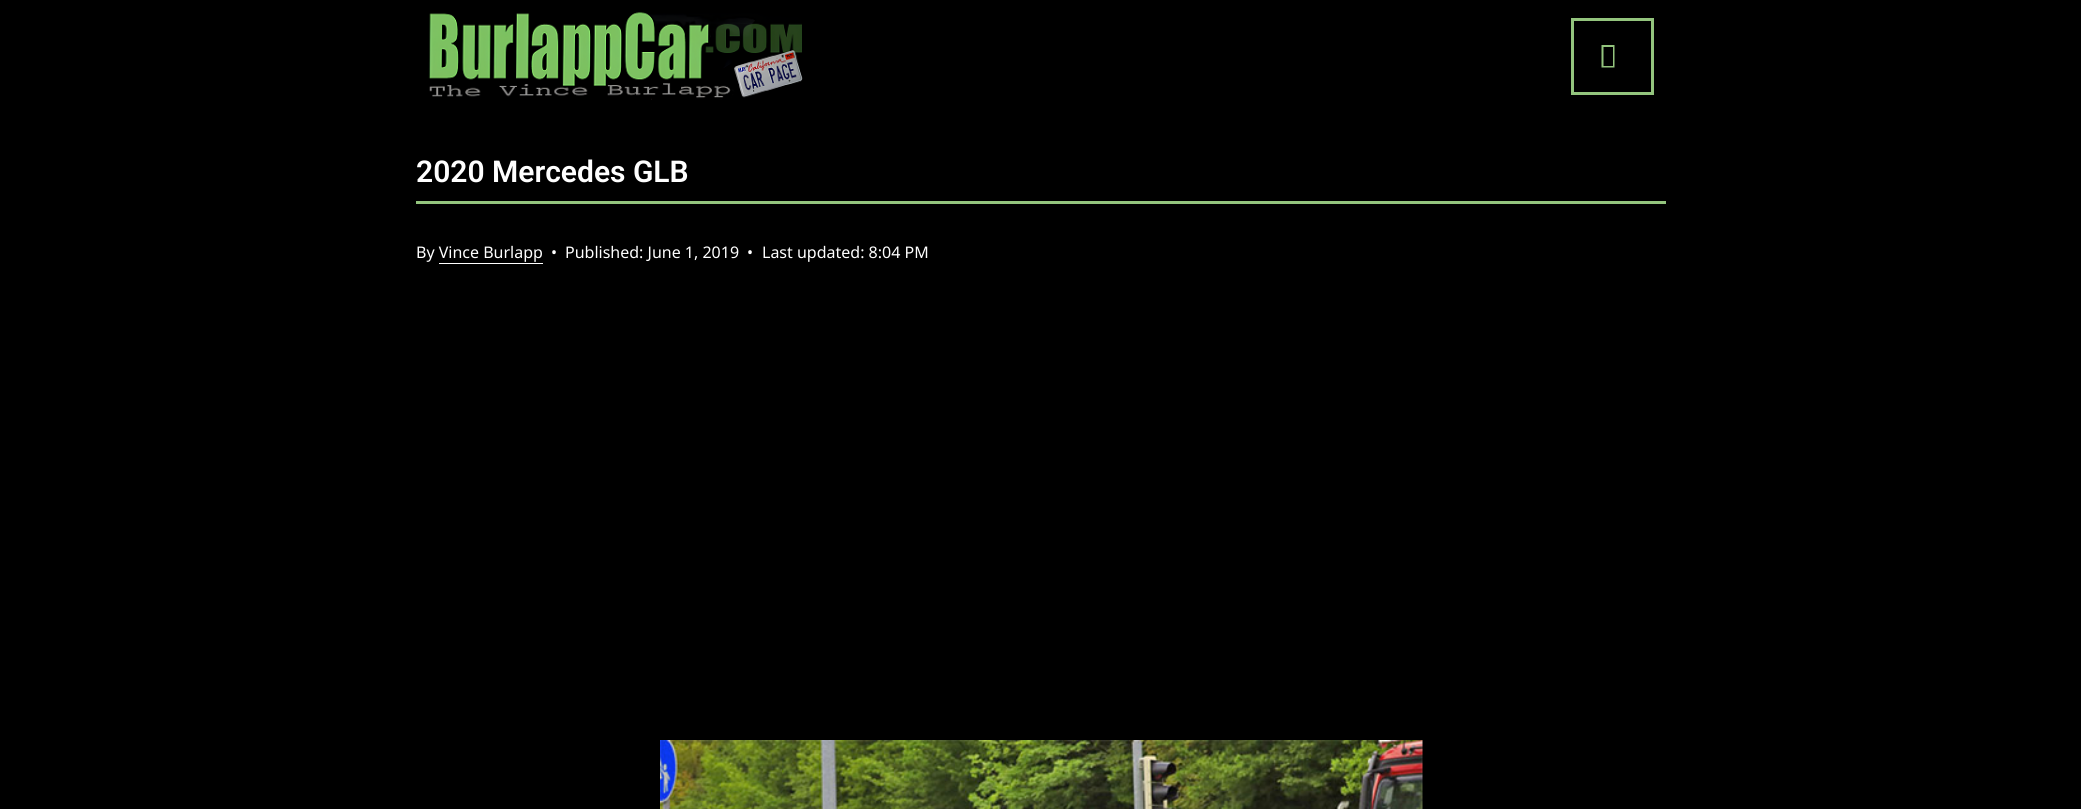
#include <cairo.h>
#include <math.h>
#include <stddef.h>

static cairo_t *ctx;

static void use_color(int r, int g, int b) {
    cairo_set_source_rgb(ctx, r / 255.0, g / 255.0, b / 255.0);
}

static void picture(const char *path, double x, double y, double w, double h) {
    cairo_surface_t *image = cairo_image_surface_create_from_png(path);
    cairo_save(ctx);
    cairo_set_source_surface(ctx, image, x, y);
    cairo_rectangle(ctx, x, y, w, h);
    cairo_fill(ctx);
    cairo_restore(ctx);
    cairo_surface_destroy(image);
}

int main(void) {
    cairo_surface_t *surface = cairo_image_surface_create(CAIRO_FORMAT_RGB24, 2081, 809);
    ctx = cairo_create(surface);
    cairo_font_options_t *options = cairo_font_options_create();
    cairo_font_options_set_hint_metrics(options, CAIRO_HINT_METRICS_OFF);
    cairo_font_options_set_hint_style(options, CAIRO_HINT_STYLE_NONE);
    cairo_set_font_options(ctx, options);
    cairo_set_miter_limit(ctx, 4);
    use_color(0, 0, 0);
    cairo_paint(ctx);
    picture("img1.png", 428, 12, 375, 88);
    cairo_rectangle(ctx, 1572.5, 19.5, 80, 74);
    use_color(147, 196, 125);
    cairo_set_line_width(ctx, 3);
    cairo_stroke(ctx);
    cairo_new_path(ctx);
    cairo_move_to(ctx, 1601.5, 67.5);
    cairo_line_to(ctx, 1601.5, 45);
    cairo_line_to(ctx, 1614.5, 45);
    cairo_line_to(ctx, 1614.5, 67.5);
    cairo_close_path(ctx);
    cairo_move_to(ctx, 1603.5, 66);
    cairo_line_to(ctx, 1613, 66);
    cairo_line_to(ctx, 1613, 47);
    cairo_line_to(ctx, 1603.5, 47);
    cairo_close_path(ctx);
    cairo_fill(ctx);
    cairo_rectangle(ctx, 416, 201, 1250, 3);
    cairo_fill(ctx);
    cairo_select_font_face(ctx, "Roboto SemiBold", CAIRO_FONT_SLANT_NORMAL, CAIRO_FONT_WEIGHT_NORMAL);
    cairo_set_font_size(ctx, 30);
    use_color(255, 255, 255);
    cairo_move_to(ctx, 416, 182);
    cairo_show_text(ctx, "2020 Mercedes GLB");
    cairo_select_font_face(ctx, "Noto Sans", CAIRO_FONT_SLANT_NORMAL, CAIRO_FONT_WEIGHT_NORMAL);
    cairo_set_font_size(ctx, 16);
    cairo_move_to(ctx, 416, 258);
    cairo_show_text(ctx, "By Vince Burlapp");
    cairo_rectangle(ctx, 439, 263, 104, 1);
    cairo_fill(ctx);
    cairo_move_to(ctx, 551, 258);
    cairo_show_text(ctx, "•");
    cairo_move_to(ctx, 565, 258);
    cairo_show_text(ctx, "Published: June 1, 2019");
    cairo_move_to(ctx, 747, 258);
    cairo_show_text(ctx, "•");
    cairo_move_to(ctx, 762, 258);
    cairo_show_text(ctx, "Last updated: 8:04 PM");
    picture("img2.png", 660, 740, 763, 69);
    cairo_surface_write_to_png(surface, "result.png");
    cairo_font_options_destroy(options);
    cairo_destroy(ctx);
    cairo_surface_destroy(surface);
    return 0;
}
